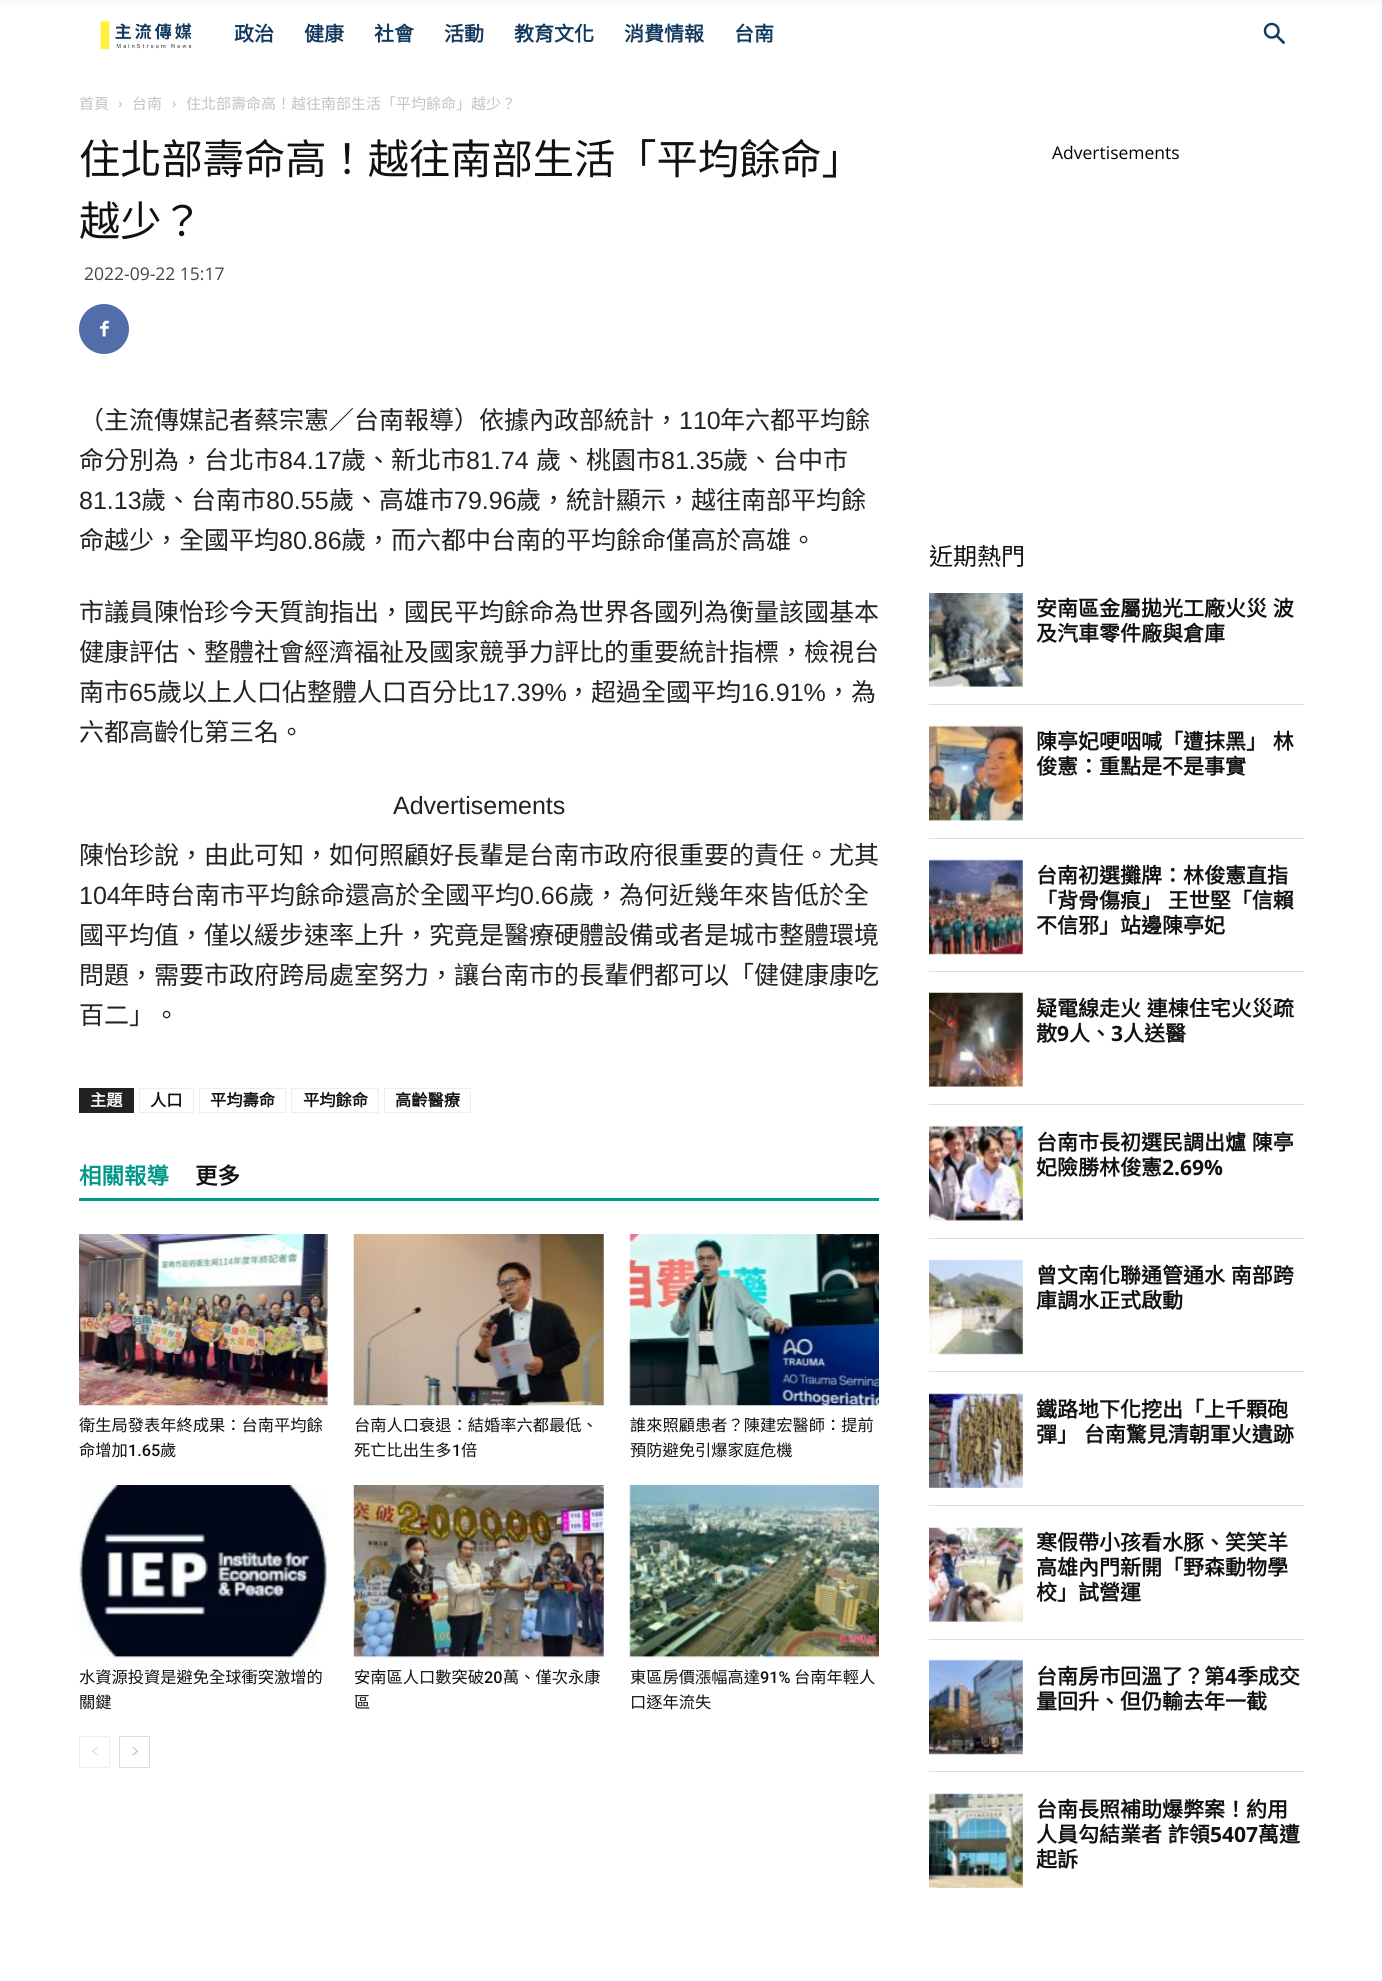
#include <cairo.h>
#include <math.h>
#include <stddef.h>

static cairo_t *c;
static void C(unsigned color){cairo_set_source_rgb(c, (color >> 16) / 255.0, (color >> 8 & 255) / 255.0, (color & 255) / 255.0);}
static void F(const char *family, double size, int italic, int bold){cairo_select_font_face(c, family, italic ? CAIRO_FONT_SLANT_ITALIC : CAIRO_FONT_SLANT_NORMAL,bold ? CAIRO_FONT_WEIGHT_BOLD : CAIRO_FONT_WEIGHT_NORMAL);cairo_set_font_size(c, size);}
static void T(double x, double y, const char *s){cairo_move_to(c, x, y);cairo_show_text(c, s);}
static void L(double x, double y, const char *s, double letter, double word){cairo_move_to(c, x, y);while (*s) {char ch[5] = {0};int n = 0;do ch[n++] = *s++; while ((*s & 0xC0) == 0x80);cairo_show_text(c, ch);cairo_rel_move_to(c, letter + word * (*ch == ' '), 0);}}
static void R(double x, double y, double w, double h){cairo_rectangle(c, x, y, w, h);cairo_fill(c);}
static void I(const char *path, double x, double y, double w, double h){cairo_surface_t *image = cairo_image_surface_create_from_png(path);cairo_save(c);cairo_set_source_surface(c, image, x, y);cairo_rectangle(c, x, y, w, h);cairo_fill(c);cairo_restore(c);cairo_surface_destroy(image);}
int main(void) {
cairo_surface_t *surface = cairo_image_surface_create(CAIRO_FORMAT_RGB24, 1382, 1981);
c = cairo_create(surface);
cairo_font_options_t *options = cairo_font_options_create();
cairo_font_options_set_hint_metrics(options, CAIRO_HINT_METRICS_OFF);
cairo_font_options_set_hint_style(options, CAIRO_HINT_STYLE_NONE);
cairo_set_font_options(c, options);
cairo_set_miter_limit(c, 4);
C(0xffffff);
cairo_paint(c);
C(0xf9f9f9);
R(0,0,1382,5);
I("1.png",100,21,92,29);
F("Noto Sans CJK TC",20,0,1);
C(0x123a5e);
T(234,41,"政治");
T(304,41,"健康");
T(374,41,"社會");
T(444,41,"活動");
T(514,41,"教育文化");
T(624,41,"消費情報");
T(734,41,"台南");
I("2.png",1263,22,22,22);
F("Noto Sans CJK TC",15,0,0);
C(0xc3c3c3);
T(79,109,"首頁");
I("3.png",118,101,4,7);
T(132,109,"台南");
I("4.png",172,101,4,7);
T(186,109,"住北部壽命高！越往南部生活「平均餘命」越少？");
F("Noto Sans CJK TC",41.25,0,0);
C(0x111111);
T(79,174,"住北部壽命高！越往南部生活「平均餘命」");
T(79,236,"越少？");
F("Open Sans",17.5,0,0);
C(0x444444);
T(84,280,"2022-09-22 15:17");
C(0x516eab);
cairo_new_path(c);
cairo_arc(c,104,329,25,0,2 * M_PI);
cairo_fill(c);
I("5.png",100,320,9,17);
F("Noto Sans CJK TC",25,0,0);
C(0x222222);
T(79,429,"（主流傳媒記者蔡宗憲／台南報導）依據內政部統計，");
F("Liberation Sans",25,0,0);
T(679,429,"110");
F("Noto Sans CJK TC",25,0,0);
T(720,429,"年六都平均餘");
T(79,469,"命分別為，台北市");
F("Liberation Sans",25,0,0);
T(279,469,"84.17");
F("Noto Sans CJK TC",25,0,0);
T(341,469,"歲、新北市");
F("Liberation Sans",25,0,0);
T(466,469,"81.74");
F("Noto Sans CJK TC",25,0,0);
T(536,469,"歲、桃園市");
F("Liberation Sans",25,0,0);
T(661,469,"81.35");
F("Noto Sans CJK TC",25,0,0);
T(723,469,"歲、台中市");
F("Liberation Sans",25,0,0);
T(79,509,"81.13");
F("Noto Sans CJK TC",25,0,0);
T(141,509,"歲、台南市");
F("Liberation Sans",25,0,0);
T(266,509,"80.55");
F("Noto Sans CJK TC",25,0,0);
T(329,509,"歲、高雄市");
F("Liberation Sans",25,0,0);
T(454,509,"79.96");
F("Noto Sans CJK TC",25,0,0);
T(516,509,"歲，統計顯示，越往南部平均餘");
T(79,549,"命越少，全國平均");
F("Liberation Sans",25,0,0);
T(279,549,"80.86");
F("Noto Sans CJK TC",25,0,0);
T(341,549,"歲，而六都中台南的平均餘命僅高於高雄。");
T(79,621,"市議員陳怡珍今天質詢指出，國民平均餘命為世界各國列為衡量該國基本");
T(79,661,"健康評估、整體社會經濟福祉及國家競爭力評比的重要統計指標，檢視台");
T(79,701,"南市");
F("Liberation Sans",25,0,0);
T(129,701,"65");
F("Noto Sans CJK TC",25,0,0);
T(157,701,"歲以上人口佔整體人口百分比");
F("Liberation Sans",25,0,0);
T(482,701,"17.39%");
F("Noto Sans CJK TC",25,0,0);
T(566,701,"，超過全國平均");
F("Liberation Sans",25,0,0);
T(741,701,"16.91%");
F("Noto Sans CJK TC",25,0,0);
T(826,701,"，為");
T(79,741,"六都高齡化第三名。");
F("Liberation Sans",25,0,0);
T(393,814,"Advertisements");
F("Noto Sans CJK TC",25,0,0);
T(79,864,"陳怡珍說，由此可知，如何照顧好長輩是台南市政府很重要的責任。尤其");
F("Liberation Sans",25,0,0);
T(79,904,"104");
F("Noto Sans CJK TC",25,0,0);
T(120,904,"年時台南市平均餘命還高於全國平均");
F("Liberation Sans",25,0,0);
T(520,904,"0.66");
F("Noto Sans CJK TC",25,0,0);
T(569,904,"歲，為何近幾年來皆低於全");
T(79,944,"國平均值，僅以緩步速率上升，究竟是醫療硬體設備或者是城市整體環境");
T(79,984,"問題，需要市政府跨局處室努力，讓台南市的長輩們都可以「健健康康吃");
T(79,1024,"百二」。");
R(79,1088,55,25);
F("Noto Sans CJK TC",16.25,0,1);
C(0xffffff);
T(90,1106,"主題");
cairo_rectangle(c,139.5,1088.5,54,24);
C(0xededed);
cairo_set_line_width(c,1);
cairo_stroke(c);
C(0x111111);
T(150,1106,"人口");
cairo_rectangle(c,199.5,1088.5,86,24);
C(0xededed);
cairo_stroke(c);
C(0x111111);
T(210,1106,"平均壽命");
cairo_rectangle(c,291.5,1088.5,87,24);
C(0xededed);
cairo_stroke(c);
C(0x111111);
T(303,1106,"平均餘命");
cairo_rectangle(c,384.5,1088.5,86,24);
C(0xededed);
cairo_stroke(c);
C(0x111111);
T(395,1106,"高齡醫療");
C(0x009688);
R(79,1198,800,3);
F("Noto Sans CJK TC",22.5,0,1);
T(79,1184,"相關報導");
C(0x111111);
T(195,1184,"更多");
I("6.png",79,1234,249,172);
F("Noto Sans CJK TC",16.25,0,0);
T(79,1431,"衛生局發表年終成果：台南平均餘");
T(79,1456,"命增加");
F("Roboto Medium",16.25,0,0);
T(128,1456,"1.65");
F("Noto Sans CJK TC",16.25,0,0);
T(160,1456,"歲");
I("7.png",353,1234,251,172);
T(354,1431,"台南人口衰退：結婚率六都最低、");
T(354,1456,"死亡比出生多");
F("Roboto Medium",16.25,0,0);
T(452,1456,"1");
F("Noto Sans CJK TC",16.25,0,0);
T(461,1456,"倍");
I("8.png",629,1234,250,172);
T(630,1431,"誰來照顧患者？陳建宏醫師：提前");
T(630,1456,"預防避免引爆家庭危機");
I("9.png",79,1485,249,173);
T(79,1683,"水資源投資是避免全球衝突激增的");
T(79,1708,"關鍵");
I("10.png",353,1485,251,173);
T(354,1683,"安南區人口數突破");
F("Roboto Medium",16.25,0,0);
T(484,1683,"20");
F("Noto Sans CJK TC",16.25,0,0);
T(503,1683,"萬、僅次永康");
T(354,1708,"區");
I("11.png",629,1485,250,173);
T(630,1683,"東區房價漲幅高達");
F("Roboto Medium",16.25,0,0);
T(760,1683,"91%");
F("Noto Sans CJK TC",16.25,0,0);
T(794,1683,"台南年輕人");
T(630,1708,"口逐年流失");
cairo_rectangle(c,79.5,1736.5,30,31);
C(0xeeeeee);
cairo_stroke(c);
I("12.png",92,1747,6,9);
cairo_rectangle(c,119.5,1736.5,30,31);
C(0xdcdcdc);
cairo_stroke(c);
I("13.png",132,1747,6,9);
F("Open Sans",17.5,0,0);
C(0x000000);
T(1052,159,"Advertisements");
F("Noto Sans CJK TC",24,0,0);
C(0x111111);
T(929,565,"近期熱門");
C(0xdddddd);
R(929,704,375,1);
I("14.png",929,593,94,94);
F("Noto Sans CJK TC",21,0,1);
C(0x111111);
L(1036,616,"安南區金屬拋光工廠火災 波",0,1);
T(1036,641,"及汽車零件廠與倉庫");
C(0xdddddd);
R(929,838,375,1);
C(0xf0f0f0);
R(929,726,94,94);
I("15.png",929,725,94,96);
C(0x111111);
L(1036,749,"陳亭妃哽咽喊「遭抹黑」 林",0,1);
T(1036,774,"俊憲：重點是不是事實");
C(0xdddddd);
R(929,971,375,1);
C(0xf0f0f0);
R(929,860,94,94);
I("16.png",929,859,94,96);
C(0x111111);
T(1036,883,"台南初選攤牌：林俊憲直指");
L(1036,908,"「背骨傷痕」 王世堅「信賴",0,1);
T(1036,933,"不信邪」站邊陳亭妃");
C(0xdddddd);
R(929,1104,375,1);
I("17.png",929,992,94,95);
C(0x111111);
L(1036,1016,"疑電線走火 連棟住宅火災疏",0,1);
T(1036,1041,"散");
F("Open Sans",21,0,1);
T(1057,1041,"9");
F("Noto Sans CJK TC",21,0,1);
T(1069,1041,"人、");
F("Open Sans",21,0,1);
T(1111,1041,"3");
F("Noto Sans CJK TC",21,0,1);
T(1123,1041,"人送醫");
C(0xdddddd);
R(929,1238,375,1);
C(0xf0f0f0);
R(929,1126,94,94);
I("18.png",929,1125,94,96);
C(0x111111);
L(1036,1150,"台南市長初選民調出爐 陳亭",0,1);
T(1036,1175,"妃險勝林俊憲");
F("Open Sans",21,0,1);
T(1162,1175,"2.69%");
C(0xdddddd);
R(929,1371,375,1);
C(0xf0f0f0);
R(929,1260,94,94);
I("19.png",929,1259,94,96);
F("Noto Sans CJK TC",21,0,1);
C(0x111111);
L(1036,1283,"曾文南化聯通管通水 南部跨",0,1);
T(1036,1308,"庫調水正式啟動");
C(0xdddddd);
R(929,1505,375,1);
C(0xf0f0f0);
R(929,1394,94,94);
I("20.png",929,1393,94,95);
C(0x111111);
T(1036,1417,"鐵路地下化挖出「上千顆砲");
L(1036,1442,"彈」 台南驚見清朝軍火遺跡",0,1);
C(0xdddddd);
R(929,1639,375,1);
I("21.png",929,1527,94,95);
C(0x111111);
T(1036,1550,"寒假帶小孩看水豚、笑笑羊");
T(1036,1575,"高雄內門新開「野森動物學");
T(1036,1600,"校」試營運");
C(0xdddddd);
R(929,1771,375,1);
C(0xf0f0f0);
R(929,1660,94,94);
I("22.png",929,1659,94,96);
C(0x111111);
T(1036,1684,"台南房市回溫了？第");
F("Open Sans",21,0,1);
T(1225,1684,"4");
F("Noto Sans CJK TC",21,0,1);
T(1237,1684,"季成交");
T(1036,1709,"量回升、但仍輸去年一截");
C(0xf0f0f0);
R(929,1794,94,94);
I("23.png",929,1793,94,95);
C(0x111111);
T(1036,1817,"台南長照補助爆弊案！約用");
L(1036,1842,"人員勾結業者 詐領",0,1);
F("Open Sans",21,0,1);
T(1210,1842,"5407");
F("Noto Sans CJK TC",21,0,1);
T(1258,1842,"萬遭");
T(1036,1867,"起訴");
cairo_surface_write_to_png(surface, "o.png");
cairo_font_options_destroy(options);
cairo_destroy(c);
cairo_surface_destroy(surface);
return 0;
}
